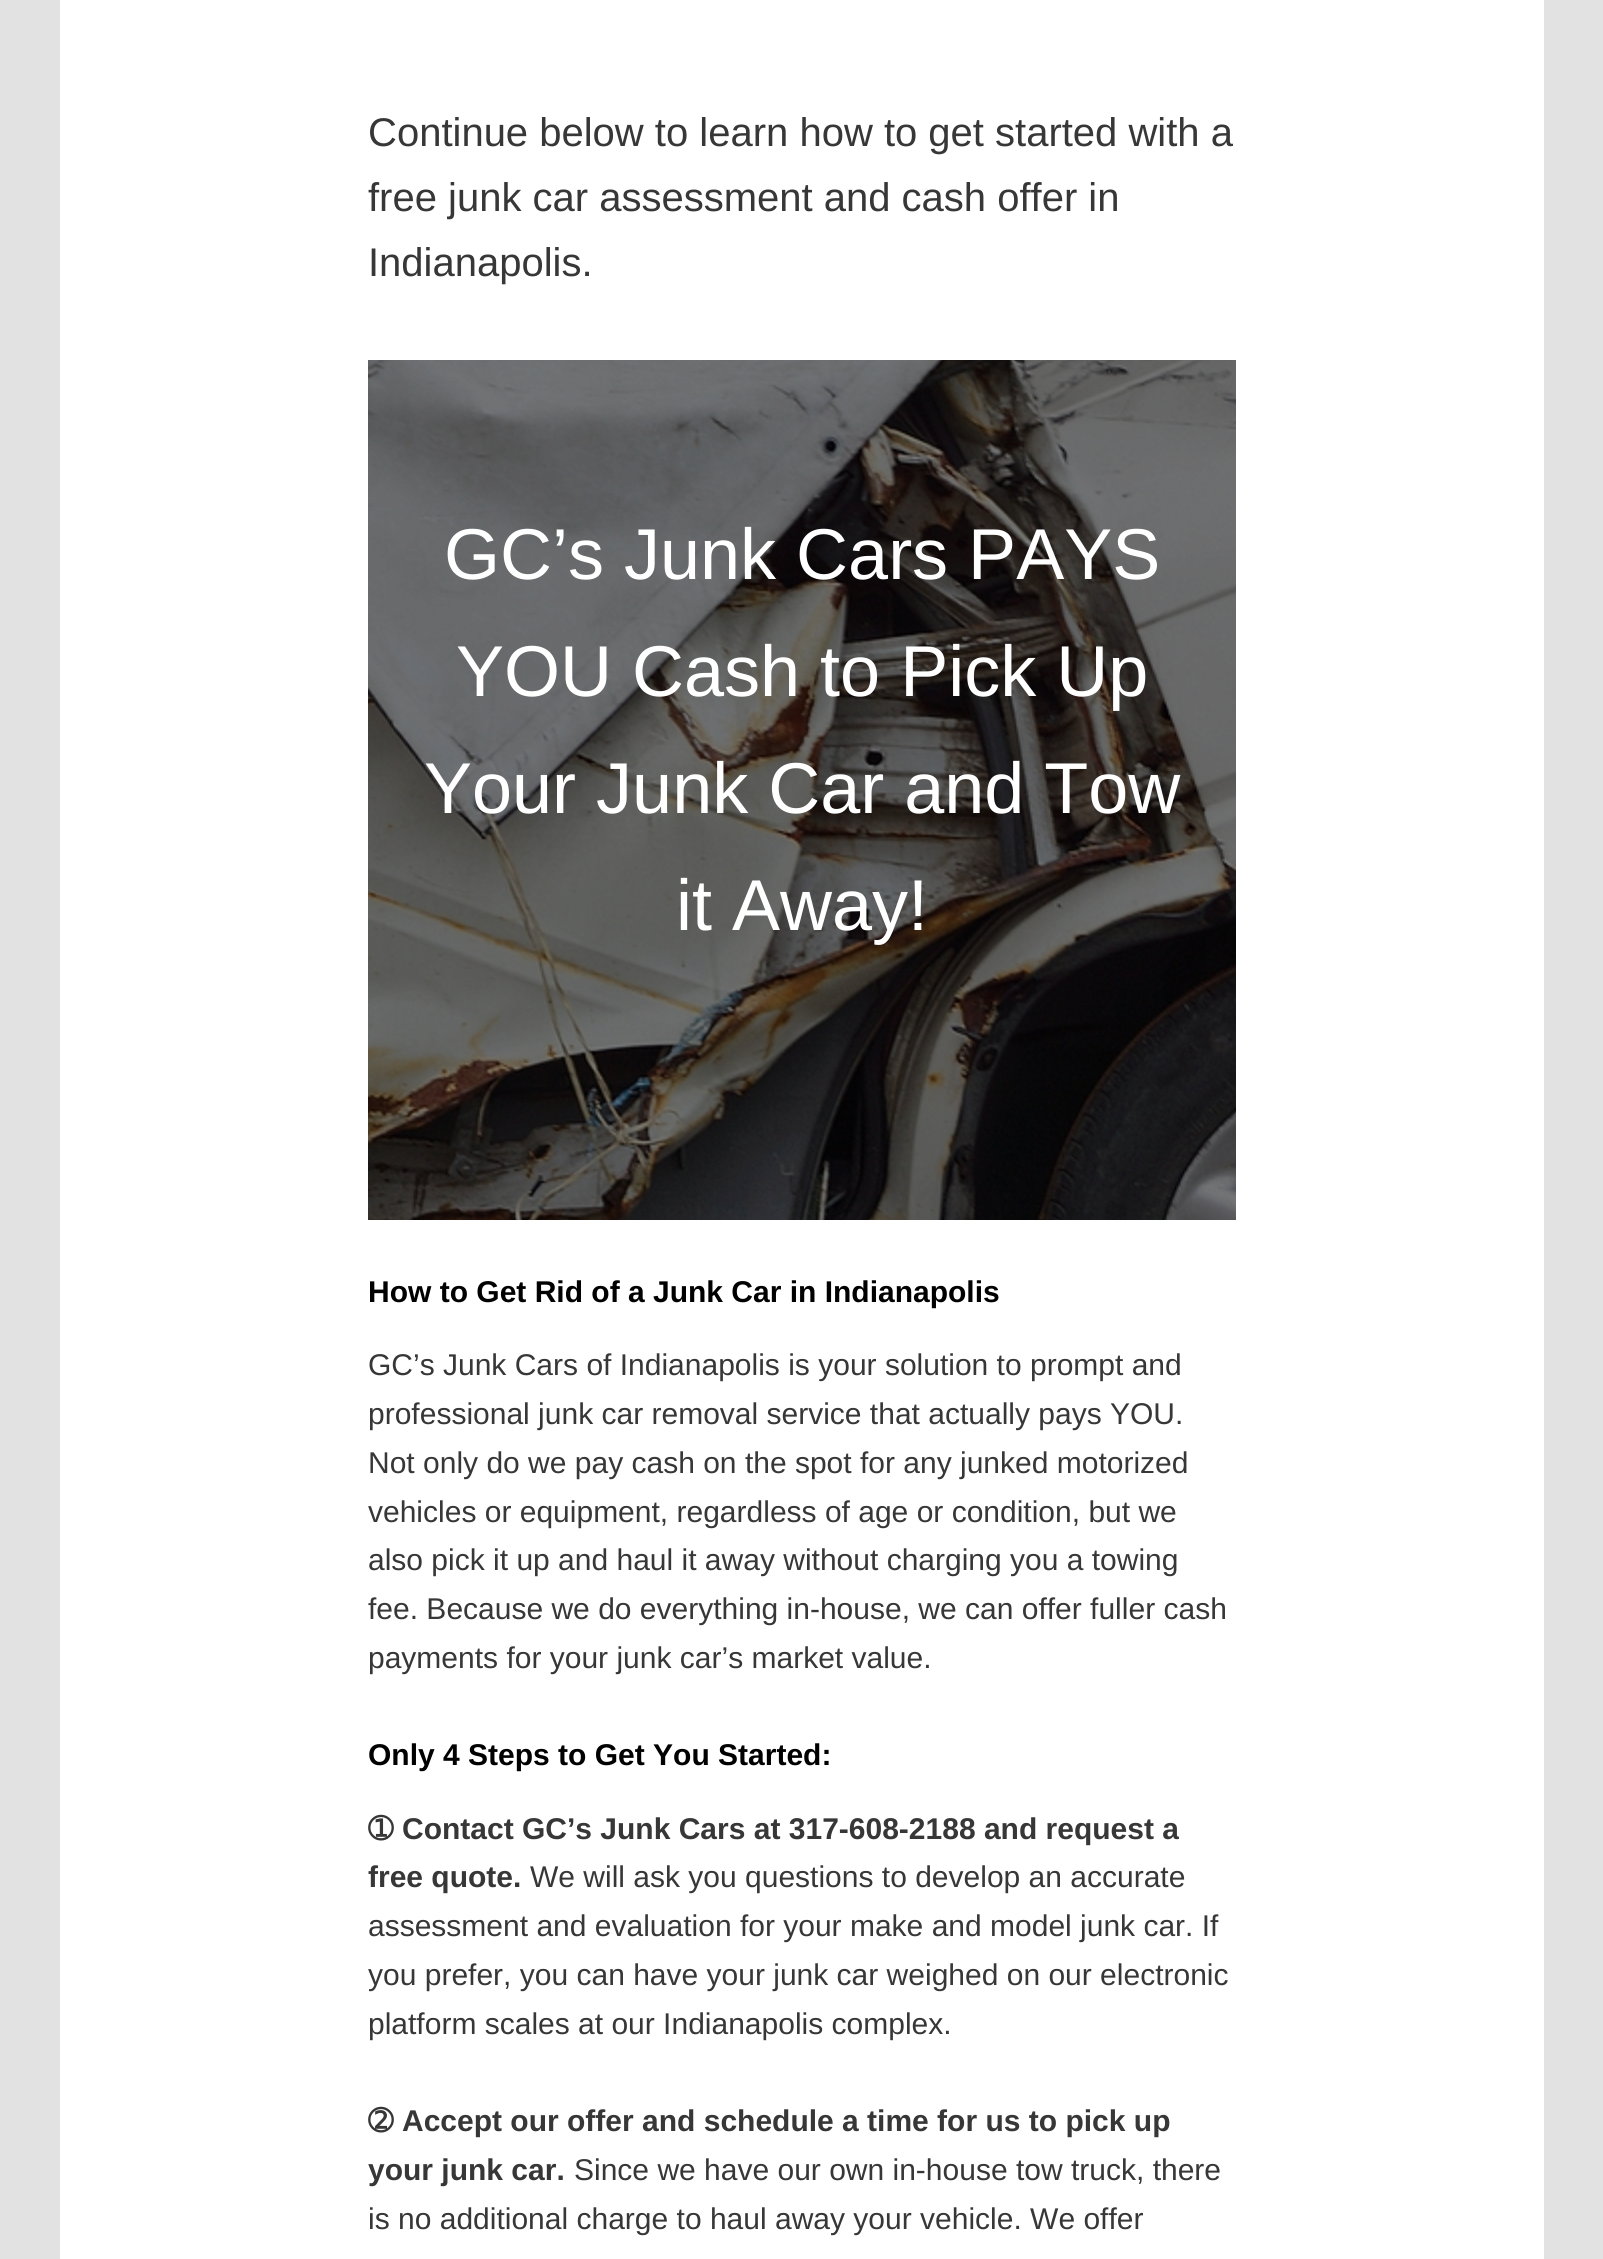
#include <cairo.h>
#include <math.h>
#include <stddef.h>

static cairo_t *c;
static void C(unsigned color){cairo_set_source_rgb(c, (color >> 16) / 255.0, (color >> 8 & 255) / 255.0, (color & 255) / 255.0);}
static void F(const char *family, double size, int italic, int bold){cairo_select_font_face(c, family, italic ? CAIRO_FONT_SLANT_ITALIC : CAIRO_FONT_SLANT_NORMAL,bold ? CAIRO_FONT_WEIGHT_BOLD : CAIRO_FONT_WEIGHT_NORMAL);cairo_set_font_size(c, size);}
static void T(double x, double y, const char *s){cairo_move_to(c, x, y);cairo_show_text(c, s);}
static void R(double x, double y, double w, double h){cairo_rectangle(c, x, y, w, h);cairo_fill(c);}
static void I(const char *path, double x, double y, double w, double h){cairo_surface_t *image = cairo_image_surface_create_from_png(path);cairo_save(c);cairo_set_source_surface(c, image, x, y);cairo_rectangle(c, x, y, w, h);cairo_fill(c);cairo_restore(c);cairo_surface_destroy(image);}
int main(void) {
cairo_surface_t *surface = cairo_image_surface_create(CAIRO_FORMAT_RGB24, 1603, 2259);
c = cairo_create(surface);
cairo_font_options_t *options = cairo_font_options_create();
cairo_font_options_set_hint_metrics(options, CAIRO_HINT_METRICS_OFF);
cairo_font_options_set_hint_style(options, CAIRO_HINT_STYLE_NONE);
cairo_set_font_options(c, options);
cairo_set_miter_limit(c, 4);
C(0xe2e2e2);
cairo_paint(c);
C(0xffffff);
R(60,0,1484,2259);
F("Liberation Sans",40,0,0);
C(0x373737);
T(368,146,"Continue below to learn how to get started with a");
T(368,211,"free junk car assessment and cash offer in");
T(368,276,"Indianapolis.");
I("1.png",368,360,868,860);
F("Liberation Sans",72,0,0);
C(0xffffff);
T(444,579,"GC’s Junk Cars PAYS");
T(456,696,"YOU Cash to Pick Up");
T(424,813,"Your Junk Car and Tow");
T(676,930,"it Away!");
F("Liberation Sans",30,0,1);
C(0x000000);
T(368,1302,"How to Get Rid of a Junk Car in Indianapolis");
F("Liberation Sans",30,0,0);
C(0x373737);
T(368,1375,"GC’s Junk Cars of Indianapolis is your solution to prompt and");
T(368,1424,"professional junk car removal service that actually pays YOU.");
T(368,1473,"Not only do we pay cash on the spot for any junked motorized");
T(368,1522,"vehicles or equipment, regardless of age or condition, but we");
T(368,1570,"also pick it up and haul it away without charging you a towing");
T(368,1619,"fee. Because we do everything in-house, we can offer fuller cash");
T(368,1668,"payments for your junk car’s market value.");
F("Liberation Sans",30,0,1);
C(0x000000);
T(368,1765,"Only 4 Steps to Get You Started:");
F("DejaVu Sans",30,0,1);
C(0x373737);
T(368,1839,"➀");
F("Liberation Sans",30,0,1);
T(402,1839,"Contact GC’s Junk Cars at 317-608-2188 and request a");
T(368,1887,"free quote.");
F("Liberation Sans",30,0,0);
T(530,1887,"We will ask you questions to develop an accurate");
T(368,1936,"assessment and evaluation for your make and model junk car. If");
T(368,1985,"you prefer, you can have your junk car weighed on our electronic");
T(368,2034,"platform scales at our Indianapolis complex.");
F("DejaVu Sans",30,0,1);
T(368,2131,"➁");
F("Liberation Sans",30,0,1);
T(402,2131,"Accept our offer and schedule a time for us to pick up");
T(368,2180,"your junk car.");
F("Liberation Sans",30,0,0);
T(574,2180,"Since we have our own in-house tow truck, there");
T(368,2229,"is no additional charge to haul away your vehicle. We offer");
cairo_surface_write_to_png(surface, "o.png");
cairo_font_options_destroy(options);
cairo_destroy(c);
cairo_surface_destroy(surface);
return 0;
}
